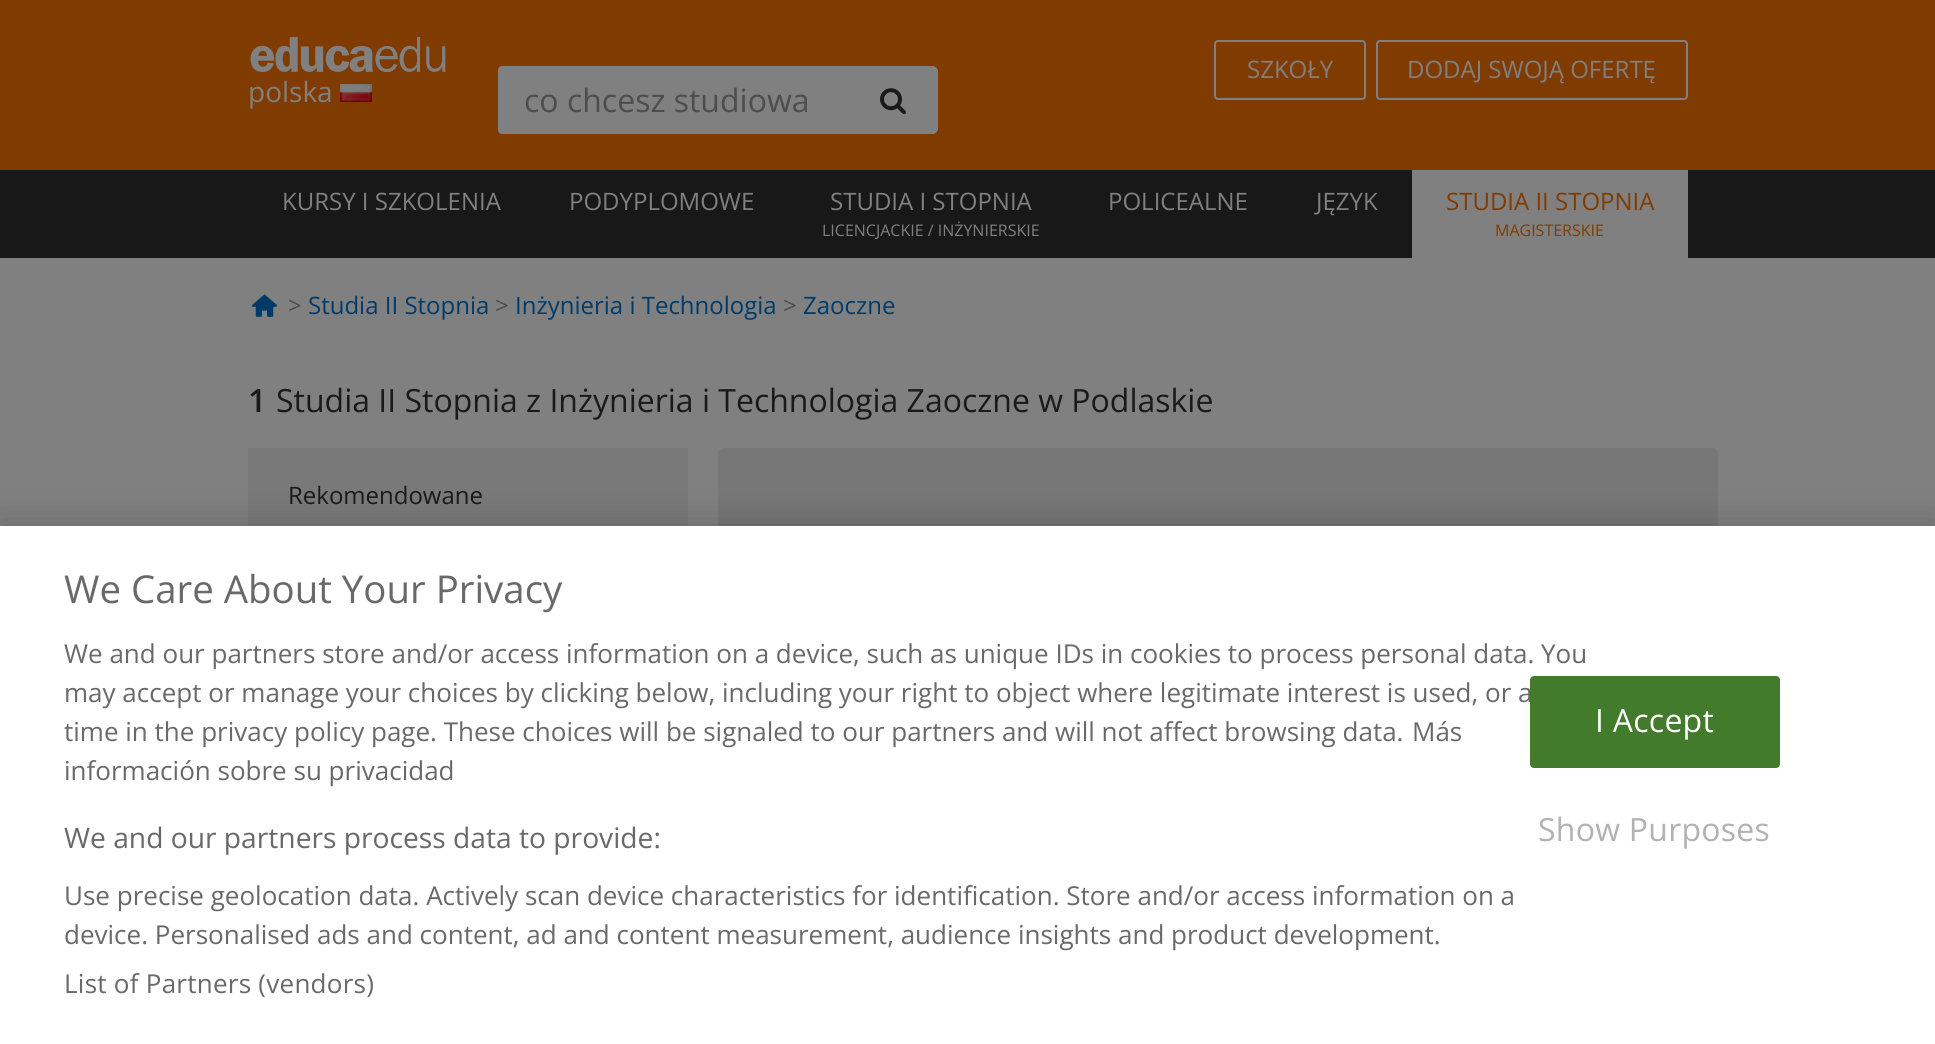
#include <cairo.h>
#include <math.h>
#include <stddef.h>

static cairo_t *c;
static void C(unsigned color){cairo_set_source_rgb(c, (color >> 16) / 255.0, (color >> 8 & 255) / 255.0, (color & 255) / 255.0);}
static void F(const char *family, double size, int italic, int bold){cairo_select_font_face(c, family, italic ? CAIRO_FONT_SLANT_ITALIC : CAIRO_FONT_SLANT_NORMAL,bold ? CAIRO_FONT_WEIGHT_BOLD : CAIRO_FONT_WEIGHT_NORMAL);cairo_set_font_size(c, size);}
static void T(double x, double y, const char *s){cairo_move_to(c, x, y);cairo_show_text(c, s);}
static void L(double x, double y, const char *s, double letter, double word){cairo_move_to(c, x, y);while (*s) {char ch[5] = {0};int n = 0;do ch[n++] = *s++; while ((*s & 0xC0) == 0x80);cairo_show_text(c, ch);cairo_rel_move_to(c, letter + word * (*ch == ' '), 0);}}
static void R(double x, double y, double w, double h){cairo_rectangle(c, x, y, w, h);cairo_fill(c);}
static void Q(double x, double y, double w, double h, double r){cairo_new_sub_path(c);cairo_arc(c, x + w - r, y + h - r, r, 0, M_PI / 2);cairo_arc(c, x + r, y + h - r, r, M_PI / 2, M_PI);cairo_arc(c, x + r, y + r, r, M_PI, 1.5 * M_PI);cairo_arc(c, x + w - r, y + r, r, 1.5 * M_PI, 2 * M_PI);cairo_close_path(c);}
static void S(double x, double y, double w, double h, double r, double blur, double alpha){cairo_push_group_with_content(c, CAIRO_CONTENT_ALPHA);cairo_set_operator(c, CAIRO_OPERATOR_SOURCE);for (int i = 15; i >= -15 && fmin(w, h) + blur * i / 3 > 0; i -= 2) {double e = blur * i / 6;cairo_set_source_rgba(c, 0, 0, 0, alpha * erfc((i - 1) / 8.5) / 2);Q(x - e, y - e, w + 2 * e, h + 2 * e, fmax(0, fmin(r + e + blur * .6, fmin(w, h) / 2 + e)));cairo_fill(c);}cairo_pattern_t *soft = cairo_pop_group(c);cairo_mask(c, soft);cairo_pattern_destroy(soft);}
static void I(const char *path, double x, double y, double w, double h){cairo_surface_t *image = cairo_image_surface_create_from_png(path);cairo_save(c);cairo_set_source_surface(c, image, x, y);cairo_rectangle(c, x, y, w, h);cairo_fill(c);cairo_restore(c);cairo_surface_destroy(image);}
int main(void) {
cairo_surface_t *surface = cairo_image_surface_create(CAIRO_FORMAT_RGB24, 1935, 1044);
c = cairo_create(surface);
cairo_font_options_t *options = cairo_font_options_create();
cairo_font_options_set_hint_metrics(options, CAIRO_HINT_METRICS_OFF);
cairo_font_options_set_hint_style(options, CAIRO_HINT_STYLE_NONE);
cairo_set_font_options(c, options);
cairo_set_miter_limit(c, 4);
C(0x808080);
cairo_paint(c);
C(0x803b00);
R(0,0,1935,170);
Q(1215,41,150,58,3);
C(0x808080);
cairo_stroke(c);
F("Open Sans",24,0,0);
T(1247,78,"SZKOŁY");
Q(1377,41,310,58,3);
cairo_stroke(c);
T(1407,78,"DODAJ SWOJĄ OFERTĘ");
I("1.png",250,37,196,35);
F("Open Sans",28,0,0);
T(248,102,"polska");
I("2.png",340,84,32,18);
cairo_new_path(c);
cairo_move_to(c,502,67);
cairo_line_to(c,847,67);
cairo_line_to(c,847,133);
cairo_line_to(c,502,133);
cairo_curve_to(c,500.5,133,499,131.5,499,130);
cairo_line_to(c,499,70);
cairo_curve_to(c,499,68.5,500.5,67,502,67);
cairo_close_path(c);
cairo_fill_preserve(c);
cairo_stroke(c);
F("Open Sans",32,0,0);
C(0x4d4d4d);
T(524,112,"co chcesz studiowa");
C(0x808080);
cairo_new_path(c);
cairo_move_to(c,846,66);
cairo_line_to(c,932,66);
cairo_curve_to(c,935.5,66,938,68.5,938,72);
cairo_line_to(c,938,128);
cairo_curve_to(c,938,131.5,935.5,134,932,134);
cairo_line_to(c,846,134);
cairo_close_path(c);
cairo_fill(c);
cairo_new_path(c);
cairo_move_to(c,846,66);
cairo_line_to(c,848,68);
cairo_line_to(c,932,68);
cairo_line_to(c,935,69);
cairo_line_to(c,936,68);
cairo_curve_to(c,935,67,934,66,932,66);
cairo_close_path(c);
cairo_fill(c);
cairo_new_path(c);
cairo_move_to(c,938,128);
cairo_line_to(c,938,72);
cairo_curve_to(c,938,70,937,69,936,68);
cairo_line_to(c,935,69);
cairo_line_to(c,936,72);
cairo_line_to(c,936,128);
cairo_line_to(c,935,131);
cairo_line_to(c,936,132);
cairo_curve_to(c,937,131,938,130,938,128);
cairo_close_path(c);
cairo_fill(c);
cairo_new_path(c);
cairo_move_to(c,932,134);
cairo_curve_to(c,934,134,935,133,936,132);
cairo_line_to(c,935,131);
cairo_line_to(c,932,132);
cairo_line_to(c,848,132);
cairo_line_to(c,846,134);
cairo_close_path(c);
cairo_fill(c);
I("3.png",880,88,26,27);
C(0x181818);
R(0,170,1935,88);
F("Open Sans",24,0,0);
C(0x808080);
T(282,210,"KURSY I SZKOLENIA");
T(569,210,"PODYPLOMOWE");
T(830,210,"STUDIA I STOPNIA");
F("Open Sans",16,0,0);
T(822,236,"LICENCJACKIE / INŻYNIERSKIE");
F("Open Sans",24,0,0);
T(1108,210,"POLICEALNE");
T(1316,210,"JĘZYK");
R(1412,170,276,88);
C(0x803b00);
T(1446,210,"STUDIA II STOPNIA");
F("Open Sans",16,0,0);
T(1495,236,"MAGISTERSKIE");
I("4.png",252,294,25,23);
F("Open Sans",24,0,0);
C(0x4d4d4d);
T(288,314,">");
C(0x003b69);
T(308,314,"Studia II Stopnia");
C(0x4d4d4d);
T(495,314,">");
C(0x003b69);
T(515,314,"Inżynieria i Technologia");
C(0x4d4d4d);
T(783,314,">");
C(0x003b69);
T(803,314,"Zaoczne");
F("Open Sans SemiBold",32,0,0);
C(0x1a1a1a);
T(248,412,"1");
F("Open Sans",32,0,0);
T(276,412,"Studia II Stopnia z Inżynieria i Technologia Zaoczne w Podlaskie");
C(0x797979);
R(248,448,440,78);
F("Open Sans",24,0,0);
C(0x1a1a1a);
T(288,504,"Rekomendowane");
C(0x777777);
Q(718,448,1000,190,6);
cairo_fill(c);
C(0x000000);
S(0,526,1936,518,0,18,.2);
C(0xffffff);
R(0,526,1935,518);
F("Open Sans",38.4,0,0);
C(0x696969);
T(64,603,"We Care About Your Privacy");
F("Open Sans",26.02,0,0);
T(64,663,"We and our partners store and/or access information on a device, such as unique IDs in cookies to process personal data. You");
T(64,702,"may accept or manage your choices by clicking below, including your right to object where legitimate interest is used, or a");
T(64,741,"time in the privacy policy page. These choices will be signaled to our partners and will not affect browsing data.");
T(1412,741,"Más");
T(64,780,"información sobre su privacidad");
F("Open Sans",28.2,0,0);
T(64,848,"We and our partners process data to provide:");
F("Open Sans",26.02,0,0);
T(64,905,"Use precise geolocation data. Actively scan device characteristics for identification. Store and/or access information on a");
T(64,944,"device. Personalised ads and content, ad and content measurement, audience insights and product development.");
L(64,993,"List of Partners (vendors)",.25,0);
C(0x437b2d);
Q(1531,677,248,90,3);
cairo_fill_preserve(c);
cairo_stroke(c);
F("Open Sans",32,0,0);
C(0xffffff);
L(1595,732,"I Accept",.25,0);
C(0xb3b1b1);
L(1538,841,"Show Purposes",.25,0);
cairo_surface_write_to_png(surface, "o.png");
cairo_font_options_destroy(options);
cairo_destroy(c);
cairo_surface_destroy(surface);
return 0;
}
